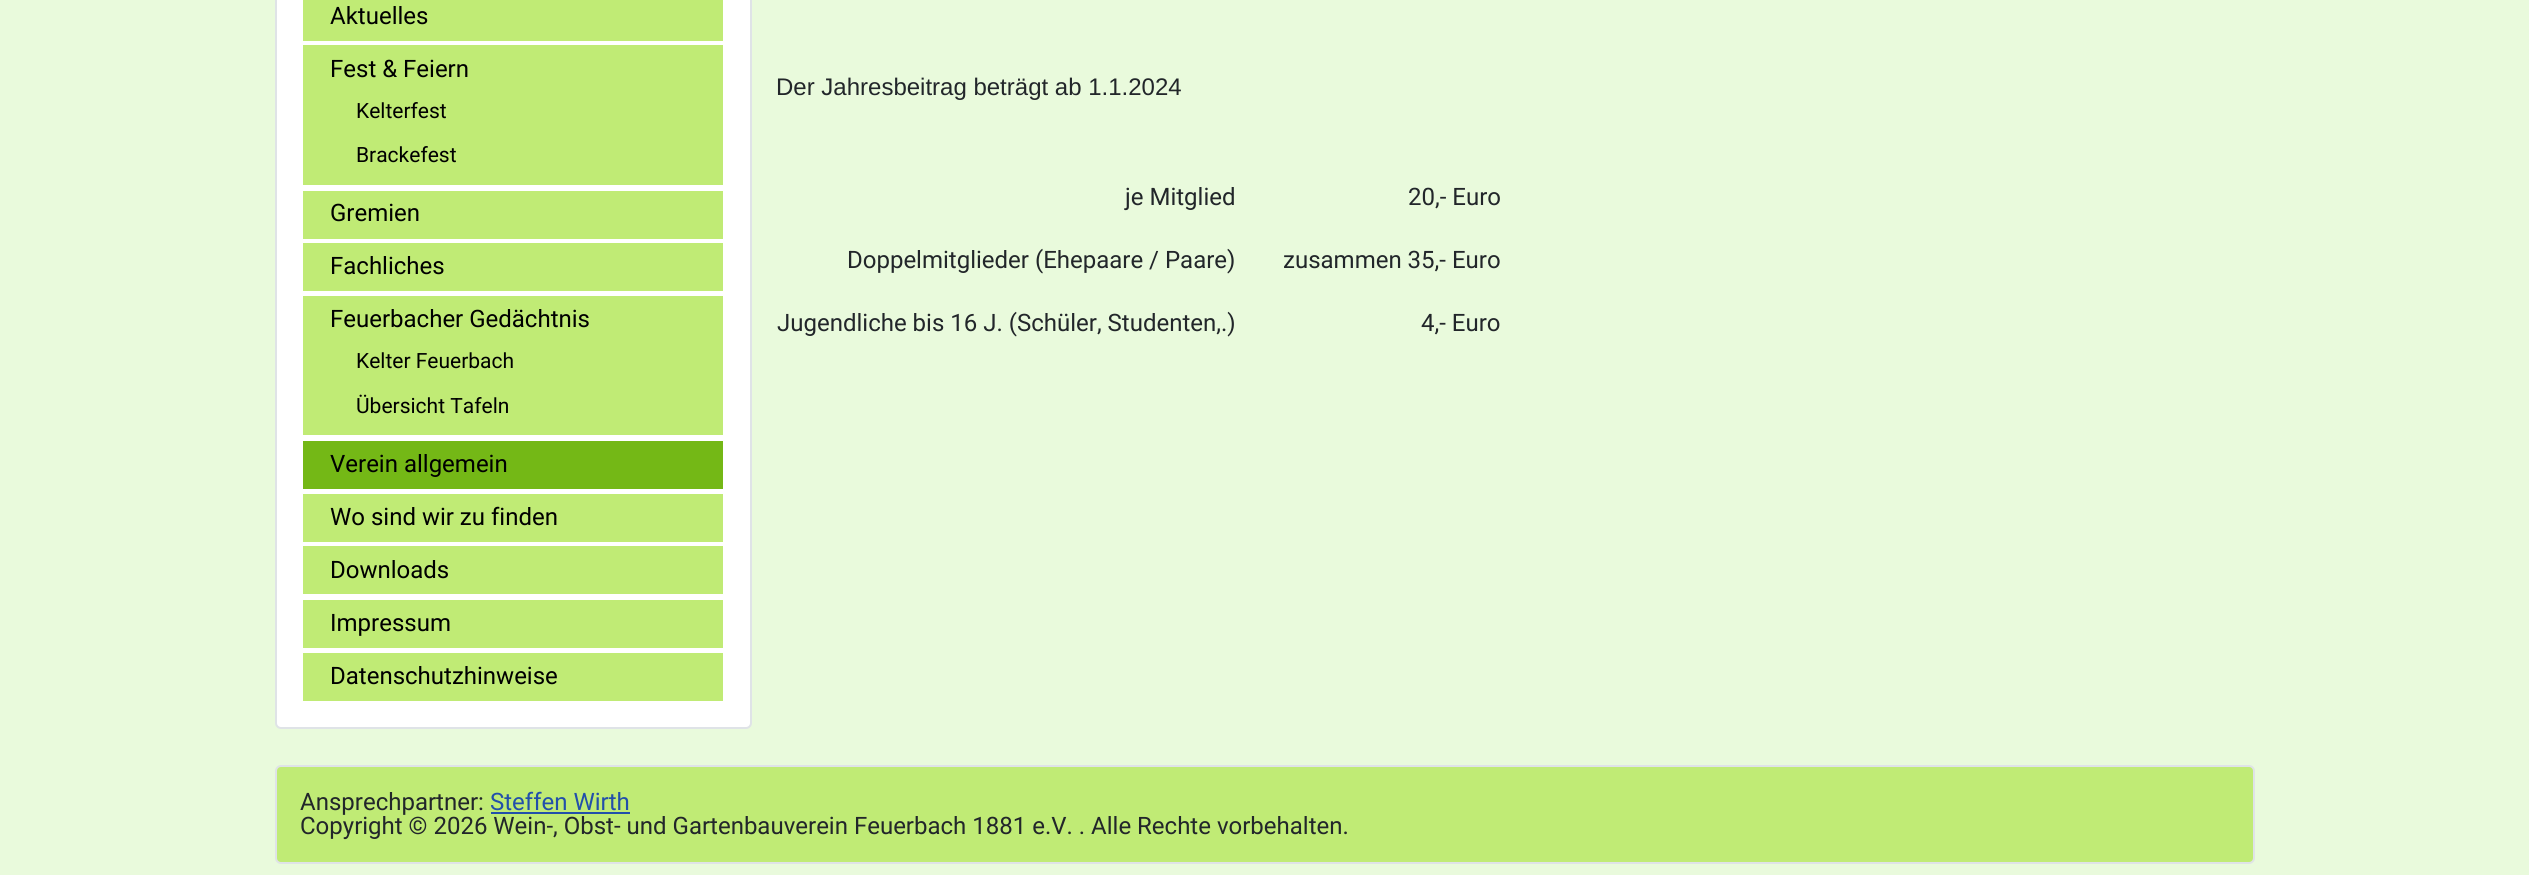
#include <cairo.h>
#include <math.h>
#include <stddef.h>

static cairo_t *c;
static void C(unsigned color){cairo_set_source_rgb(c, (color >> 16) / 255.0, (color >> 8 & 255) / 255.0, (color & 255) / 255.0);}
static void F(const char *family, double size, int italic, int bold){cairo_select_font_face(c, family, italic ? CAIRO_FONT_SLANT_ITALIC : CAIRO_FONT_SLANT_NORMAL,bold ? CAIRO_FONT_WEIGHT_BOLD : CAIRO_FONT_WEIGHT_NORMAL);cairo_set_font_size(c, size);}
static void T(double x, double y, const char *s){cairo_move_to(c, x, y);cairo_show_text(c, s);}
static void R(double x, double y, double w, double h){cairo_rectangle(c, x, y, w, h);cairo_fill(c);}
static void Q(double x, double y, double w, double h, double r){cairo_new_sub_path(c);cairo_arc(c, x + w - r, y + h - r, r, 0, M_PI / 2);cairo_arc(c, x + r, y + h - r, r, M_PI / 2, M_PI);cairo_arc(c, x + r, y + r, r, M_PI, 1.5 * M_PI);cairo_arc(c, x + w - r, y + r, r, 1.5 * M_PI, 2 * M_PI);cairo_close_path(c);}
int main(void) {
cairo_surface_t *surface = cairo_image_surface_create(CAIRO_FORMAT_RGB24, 2529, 875);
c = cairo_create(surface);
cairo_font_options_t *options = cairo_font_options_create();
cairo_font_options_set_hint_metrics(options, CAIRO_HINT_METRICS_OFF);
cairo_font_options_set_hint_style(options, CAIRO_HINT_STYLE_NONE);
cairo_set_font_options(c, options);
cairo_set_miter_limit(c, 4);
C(0xe9fadc);
cairo_paint(c);
C(0xffffff);
Q(276,-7,475,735,5);
cairo_fill_preserve(c);
C(0xdfe3e7);
cairo_stroke(c);
C(0xc0eb75);
R(303,0,420,41);
F("Roboto",24,0,0);
C(0x000000);
T(330,24,"Aktuelles");
C(0xc0eb75);
R(303,45,420,140);
C(0x000000);
T(330,77,"Fest & Feiern");
F("Roboto",21,0,0);
T(356,118,"Kelterfest");
T(356,162,"Brackefest");
C(0xc0eb75);
R(303,191,420,48);
F("Roboto",24,0,0);
C(0x000000);
T(330,221,"Gremien");
C(0xc0eb75);
R(303,243,420,48);
C(0x000000);
T(330,274,"Fachliches");
C(0xc0eb75);
R(303,296,420,139);
C(0x000000);
T(330,327,"Feuerbacher Gedächtnis");
F("Roboto",21,0,0);
T(356,368,"Kelter Feuerbach");
T(356,413,"Übersicht Tafeln");
C(0x74b816);
R(303,441,420,48);
F("Roboto",24,0,0);
C(0x000000);
T(330,472,"Verein allgemein");
C(0xc0eb75);
R(303,494,420,48);
C(0x000000);
T(330,525,"Wo sind wir zu finden");
C(0xc0eb75);
R(303,546,420,48);
C(0x000000);
T(330,578,"Downloads");
C(0xc0eb75);
R(303,600,420,48);
C(0x000000);
T(330,631,"Impressum");
C(0xc0eb75);
R(303,653,420,48);
C(0x000000);
T(330,684,"Datenschutzhinweise");
F("Liberation Sans",24,0,0);
C(0x22262a);
T(776,95,"Der Jahresbeitrag beträgt ab 1.1.2024");
F("Roboto",24,0,0);
T(1125,205,"je Mitglied");
T(1408,205,"20,- Euro");
T(847,268,"Doppelmitglieder (Ehepaare / Paare)");
T(1283,268,"zusammen 35,- Euro");
T(777,331,"Jugendliche bis 16 J. (Schüler, Studenten,.)");
T(1421,331,"4,- Euro");
C(0xc0eb75);
Q(276,766,1978,97,5);
cairo_fill_preserve(c);
C(0xdfe3e7);
cairo_stroke(c);
C(0x22262a);
T(300,810,"Ansprechpartner:");
C(0x224faa);
T(490,810,"Steffen Wirth");
R(491,812,139,2);
C(0x22262a);
T(300,834,"Copyright © 2026 Wein-, Obst- und Gartenbauverein Feuerbach 1881 e.V. . Alle Rechte vorbehalten.");
cairo_surface_write_to_png(surface, "o.png");
cairo_font_options_destroy(options);
cairo_destroy(c);
cairo_surface_destroy(surface);
return 0;
}
